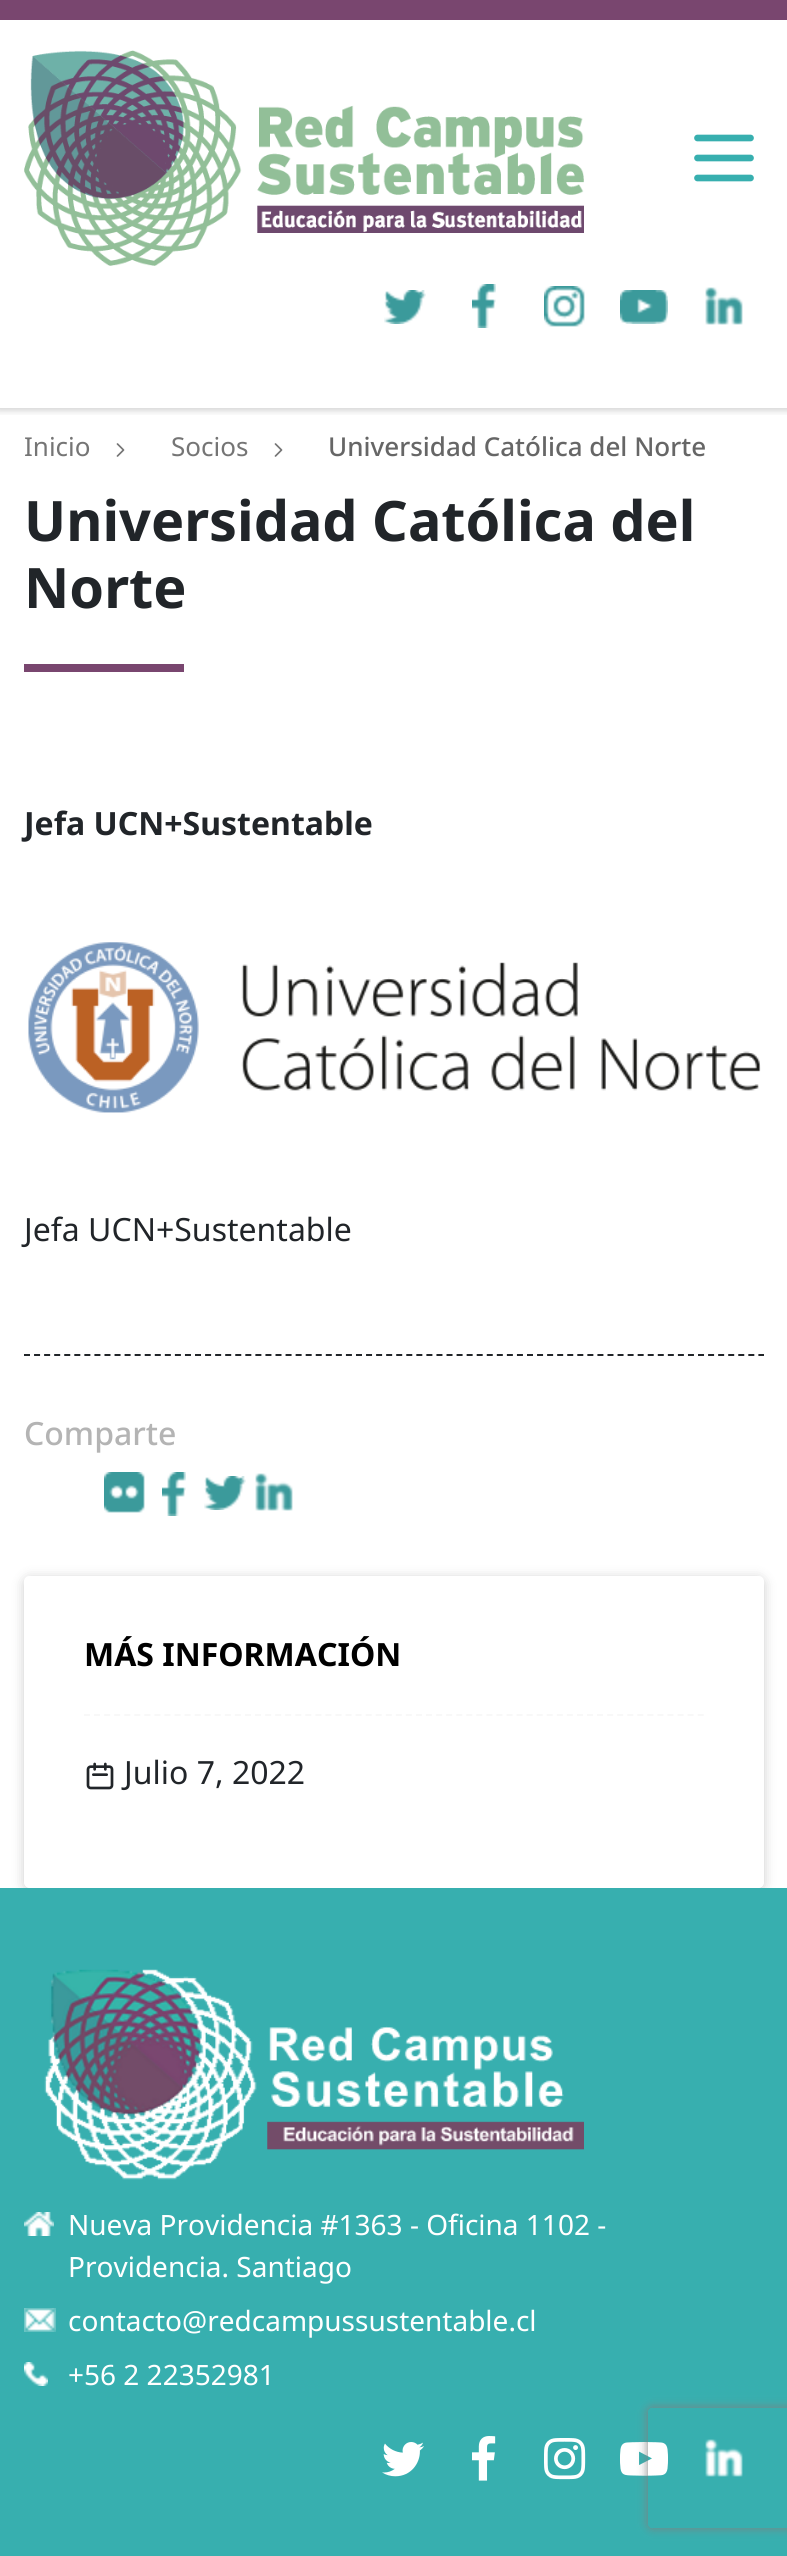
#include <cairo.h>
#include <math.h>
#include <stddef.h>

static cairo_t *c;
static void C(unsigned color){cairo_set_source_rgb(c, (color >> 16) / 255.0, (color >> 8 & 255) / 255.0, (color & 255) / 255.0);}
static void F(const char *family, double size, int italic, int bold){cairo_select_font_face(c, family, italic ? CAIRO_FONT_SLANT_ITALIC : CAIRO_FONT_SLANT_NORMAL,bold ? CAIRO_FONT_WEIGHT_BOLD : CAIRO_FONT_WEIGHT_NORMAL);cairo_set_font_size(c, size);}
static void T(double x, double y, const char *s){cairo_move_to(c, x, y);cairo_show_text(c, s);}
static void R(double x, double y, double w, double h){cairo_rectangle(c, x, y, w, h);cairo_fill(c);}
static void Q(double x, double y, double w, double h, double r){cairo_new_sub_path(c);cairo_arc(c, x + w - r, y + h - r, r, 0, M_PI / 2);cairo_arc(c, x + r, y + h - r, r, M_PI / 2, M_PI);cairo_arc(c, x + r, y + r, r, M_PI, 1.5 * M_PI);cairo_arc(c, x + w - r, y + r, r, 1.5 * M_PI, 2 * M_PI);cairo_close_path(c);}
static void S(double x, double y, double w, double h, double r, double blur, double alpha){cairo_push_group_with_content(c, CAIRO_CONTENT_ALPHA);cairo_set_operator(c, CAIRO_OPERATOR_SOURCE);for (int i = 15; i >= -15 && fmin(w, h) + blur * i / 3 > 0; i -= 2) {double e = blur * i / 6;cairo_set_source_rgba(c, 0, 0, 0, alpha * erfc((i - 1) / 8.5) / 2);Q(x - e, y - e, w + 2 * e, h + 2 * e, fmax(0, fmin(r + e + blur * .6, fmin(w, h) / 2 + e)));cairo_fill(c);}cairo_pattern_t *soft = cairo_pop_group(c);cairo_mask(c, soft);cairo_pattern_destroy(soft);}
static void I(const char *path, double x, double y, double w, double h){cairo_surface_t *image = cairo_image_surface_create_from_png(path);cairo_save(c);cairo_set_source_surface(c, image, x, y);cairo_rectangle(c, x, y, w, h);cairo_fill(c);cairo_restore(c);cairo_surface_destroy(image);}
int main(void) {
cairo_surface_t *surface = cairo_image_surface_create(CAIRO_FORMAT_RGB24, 787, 2556);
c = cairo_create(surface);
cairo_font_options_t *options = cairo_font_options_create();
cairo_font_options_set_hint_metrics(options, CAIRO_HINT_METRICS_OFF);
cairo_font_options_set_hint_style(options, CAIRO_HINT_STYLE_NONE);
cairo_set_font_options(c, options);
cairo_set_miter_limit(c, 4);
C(0xffffff);
cairo_paint(c);
cairo_save(c);
cairo_rectangle(c,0,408,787,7);
cairo_clip(c);
C(0x000000);
S(-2,-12,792,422,0,4,.2);
cairo_restore(c);
C(0x79466f);
R(0,0,787,20);
I("1.png",24,50,560,216);
cairo_new_path(c);
cairo_move_to(c,697.5,138);
cairo_line_to(c,750.5,138);
cairo_move_to(c,697.5,158);
cairo_line_to(c,750.5,158);
cairo_move_to(c,697.5,178);
cairo_line_to(c,750.5,178);
C(0x37afaf);
cairo_set_line_width(c,6.7);
cairo_set_line_cap(c,CAIRO_LINE_CAP_ROUND);
cairo_set_line_join(c,CAIRO_LINE_JOIN_ROUND);
cairo_stroke(c);
I("2.png",384,290,42,34);
I("3.png",472,284,24,44);
I("4.png",544,286,41,41);
I("5.png",620,290,48,34);
I("6.png",705,287,38,38);
F("Noto Sans",26,0,0);
C(0x757575);
T(24,456,"Inicio");
cairo_new_path(c);
cairo_move_to(c,117.5,444);
cairo_line_to(c,123.5,450);
cairo_line_to(c,117.5,456);
cairo_set_line_width(c,1.7);
cairo_stroke(c);
T(171,456,"Socios");
cairo_new_path(c);
cairo_move_to(c,275.5,444);
cairo_line_to(c,281.5,450);
cairo_line_to(c,275.5,456);
cairo_stroke(c);
F("Noto Sans Medium",26,0,0);
C(0x666666);
T(328,456,"Universidad Católica del Norte");
F("Noto Sans",55.75,0,1);
C(0x212529);
T(24,541,"Universidad Católica del");
T(24,608,"Norte");
C(0x79466f);
R(24,664,160,8);
F("Noto Sans",32,0,1);
C(0x212529);
T(24,835,"Jefa UCN+Sustentable");
I("7.png",28,942,733,171);
F("Noto Sans",32,0,0);
T(24,1241,"Jefa UCN+Sustentable");
cairo_new_path(c);
cairo_move_to(c,24,1355);
cairo_line_to(c,764,1355);
cairo_set_line_width(c,2);
cairo_set_line_cap(c,CAIRO_LINE_CAP_BUTT);
cairo_set_line_join(c,CAIRO_LINE_JOIN_MITER);
cairo_set_dash(c,(double[]){6,4.06},2,0);
cairo_stroke(c);
F("Noto Sans Medium",32,0,0);
C(0xb4b4b4);
T(24,1445,"Comparte");
I("8.png",104,1472,41,41);
I("3.png",162,1472,24,44);
I("2.png",204,1476,42,34);
I("6.png",255,1473,38,38);
cairo_save(c);
cairo_set_fill_rule(c,CAIRO_FILL_RULE_EVEN_ODD);
cairo_new_path(c);
cairo_move_to(c,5,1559);
cairo_line_to(c,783,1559);
cairo_line_to(c,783,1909);
cairo_line_to(c,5,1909);
cairo_close_path(c);
cairo_move_to(c,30,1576);
cairo_line_to(c,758,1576);
cairo_curve_to(c,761.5,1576,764,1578.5,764,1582);
cairo_line_to(c,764,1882);
cairo_curve_to(c,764,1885.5,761.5,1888,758,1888);
cairo_line_to(c,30,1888);
cairo_curve_to(c,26.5,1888,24,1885.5,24,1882);
cairo_line_to(c,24,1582);
cairo_curve_to(c,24,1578.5,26.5,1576,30,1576);
cairo_close_path(c);
cairo_clip(c);
C(0x000000);
S(24,1578,740,312,6,6,.2);
cairo_restore(c);
F("Noto Sans",32,0,1);
C(0x000000);
T(84,1666,"MÁS INFORMACIÓN");
cairo_new_path(c);
cairo_move_to(c,84,1715);
cairo_line_to(c,704,1715);
C(0xf8f8f8);
cairo_stroke(c);
I("9.png",86,1762,28,28);
F("Noto Sans",32,0,0);
C(0x212529);
T(124,1784,"Julio 7, 2022");
C(0x37afaf);
R(0,1888,787,668);
I("10.png",44,1969,540,211);
I("11.png",24,2212,30,24);
F("Noto Sans",28,0,0);
C(0xffffff);
T(68,2235,"Nueva Providencia #1363 - Oficina 1102 -");
T(68,2277,"Providencia. Santiago");
I("12.png",24,2308,32,24);
T(68,2331,"contacto@redcampussustentable.cl");
I("13.png",24,2362,24,24);
T(68,2385,"+56 2 22352981");
I("14.png",382,2442,42,35);
I("15.png",472,2436,24,45);
I("16.png",544,2438,42,42);
I("17.png",620,2442,48,34);
I("18.png",705,2439,38,38);
cairo_save(c);
cairo_set_fill_rule(c,CAIRO_FILL_RULE_EVEN_ODD);
cairo_new_path(c);
cairo_move_to(c,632,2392);
cairo_line_to(c,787,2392);
cairo_line_to(c,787,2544);
cairo_line_to(c,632,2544);
cairo_close_path(c);
cairo_move_to(c,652,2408);
cairo_line_to(c,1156,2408);
cairo_curve_to(c,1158,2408,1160,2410,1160,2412);
cairo_line_to(c,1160,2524);
cairo_curve_to(c,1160,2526,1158,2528,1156,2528);
cairo_line_to(c,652,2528);
cairo_curve_to(c,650,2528,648,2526,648,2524);
cairo_line_to(c,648,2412);
cairo_curve_to(c,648,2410,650,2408,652,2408);
cairo_close_path(c);
cairo_clip(c);
C(0x808080);
S(648,2408,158,120,4,5,1);
cairo_restore(c);
cairo_surface_write_to_png(surface, "o.png");
cairo_font_options_destroy(options);
cairo_destroy(c);
cairo_surface_destroy(surface);
return 0;
}
